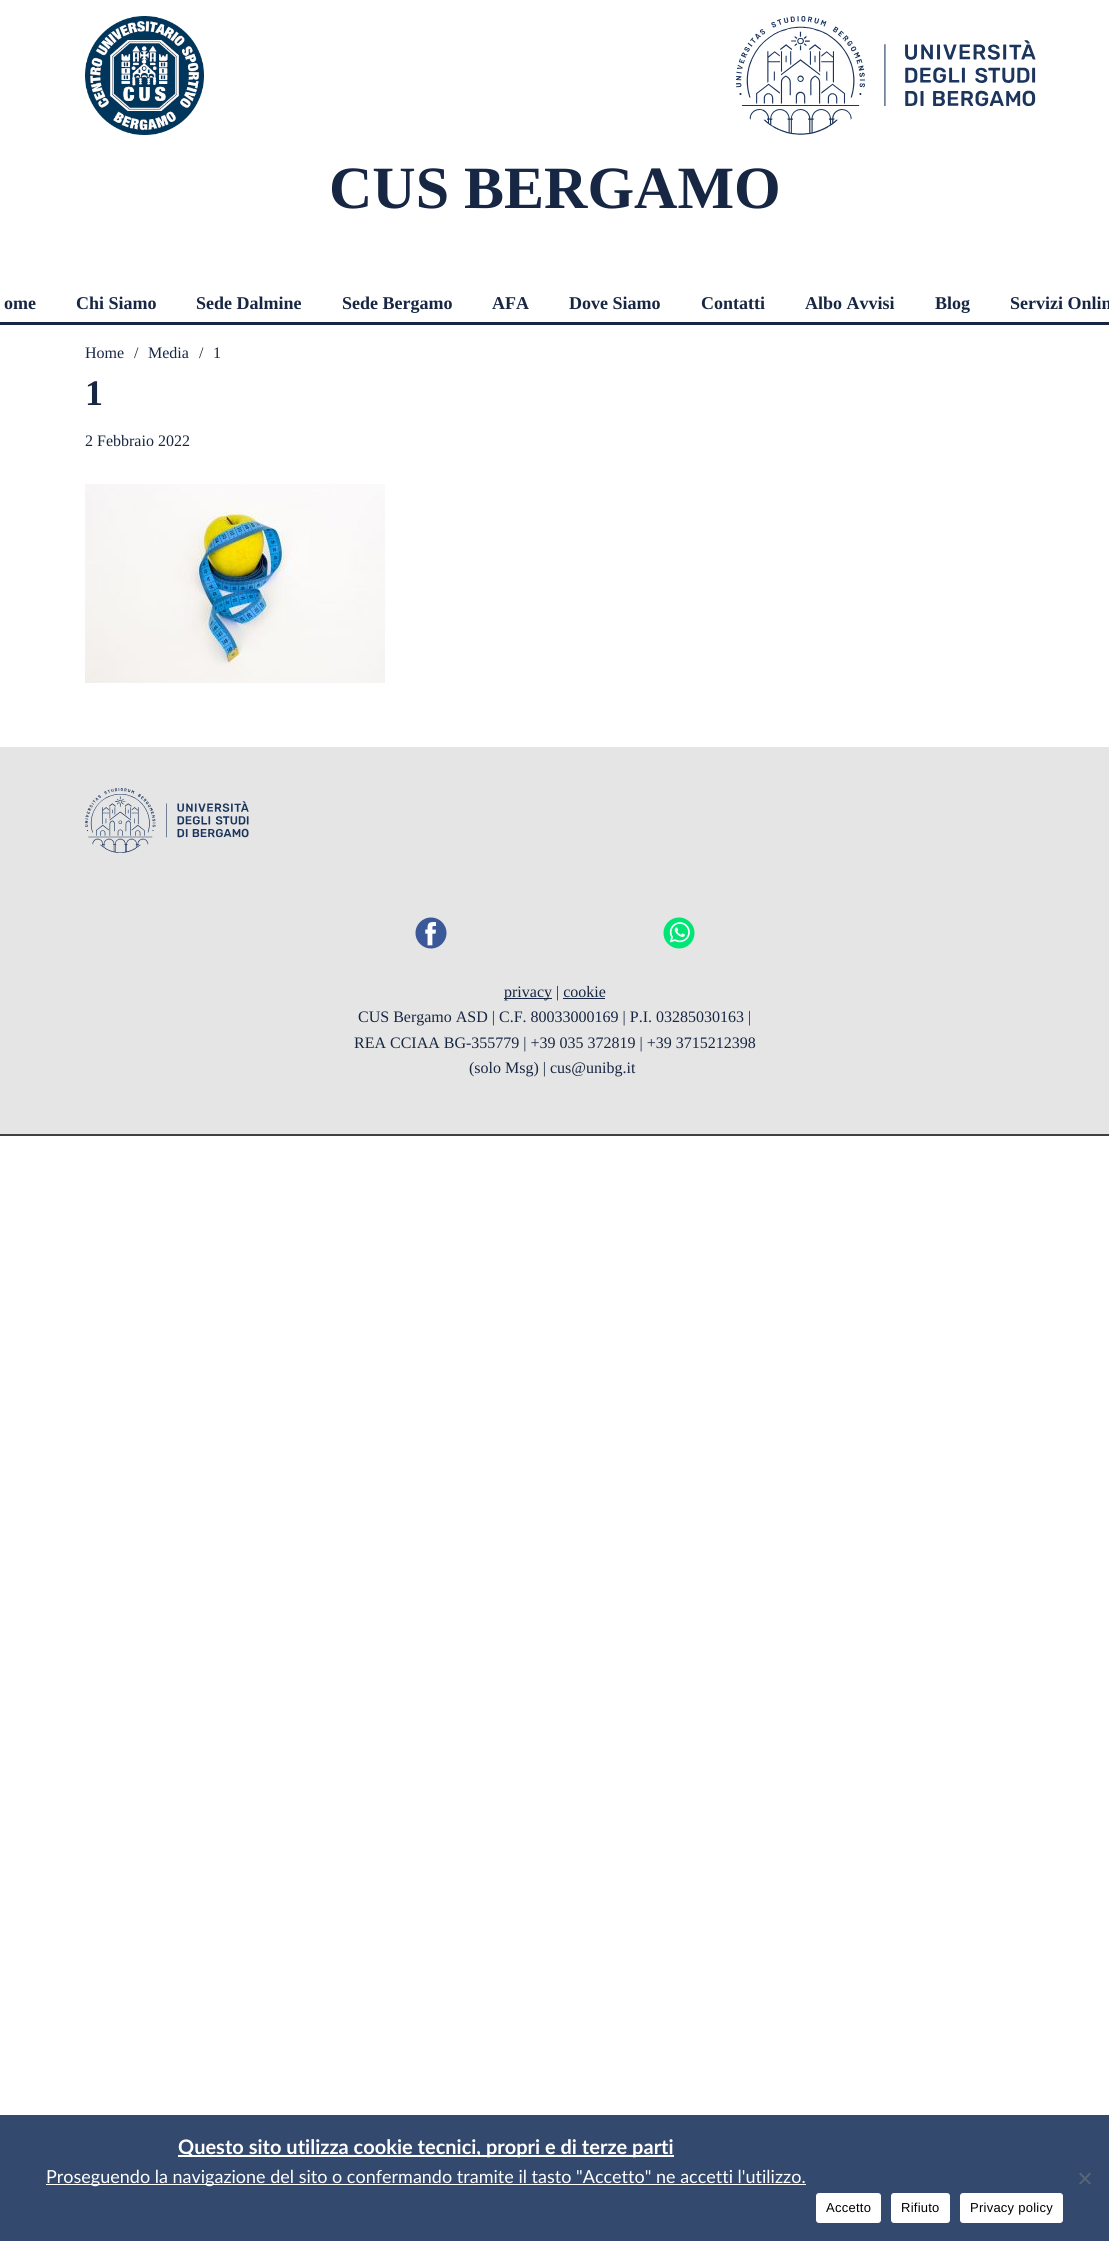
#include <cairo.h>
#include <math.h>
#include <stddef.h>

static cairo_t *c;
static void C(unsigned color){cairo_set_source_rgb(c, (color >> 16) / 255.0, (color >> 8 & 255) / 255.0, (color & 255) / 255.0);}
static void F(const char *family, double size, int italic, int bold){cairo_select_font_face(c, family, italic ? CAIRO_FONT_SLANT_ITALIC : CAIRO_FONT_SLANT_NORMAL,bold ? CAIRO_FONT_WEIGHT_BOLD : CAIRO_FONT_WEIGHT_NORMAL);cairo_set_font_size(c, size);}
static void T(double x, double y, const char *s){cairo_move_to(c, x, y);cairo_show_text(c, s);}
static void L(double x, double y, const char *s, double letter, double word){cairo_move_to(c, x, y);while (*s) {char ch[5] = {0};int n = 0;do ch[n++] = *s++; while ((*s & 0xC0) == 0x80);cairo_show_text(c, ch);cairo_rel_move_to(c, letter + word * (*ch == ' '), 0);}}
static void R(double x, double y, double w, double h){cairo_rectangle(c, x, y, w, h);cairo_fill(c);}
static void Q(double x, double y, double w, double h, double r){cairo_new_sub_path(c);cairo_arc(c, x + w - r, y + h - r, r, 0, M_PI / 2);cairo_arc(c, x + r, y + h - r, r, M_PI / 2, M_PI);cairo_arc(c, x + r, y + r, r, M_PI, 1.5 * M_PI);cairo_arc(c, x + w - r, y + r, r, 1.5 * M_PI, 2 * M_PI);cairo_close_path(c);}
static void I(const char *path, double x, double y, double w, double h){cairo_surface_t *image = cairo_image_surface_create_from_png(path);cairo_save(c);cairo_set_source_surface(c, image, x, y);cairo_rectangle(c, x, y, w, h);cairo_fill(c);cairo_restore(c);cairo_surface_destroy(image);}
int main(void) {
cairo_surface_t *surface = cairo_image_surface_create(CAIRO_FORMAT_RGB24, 1109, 2241);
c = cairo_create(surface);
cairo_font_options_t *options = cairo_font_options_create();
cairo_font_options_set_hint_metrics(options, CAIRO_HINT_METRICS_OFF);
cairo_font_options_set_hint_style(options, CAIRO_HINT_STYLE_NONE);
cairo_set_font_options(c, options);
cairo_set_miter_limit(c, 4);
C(0xffffff);
cairo_paint(c);
C(0x172642);
R(0,322,1109,3);
I("1.png",85,16,119,119);
I("2.png",736,16,300,119);
F("Liberation Serif",60,0,1);
T(329,208,"CUS BERGAMO");
F("Liberation Serif",18,0,1);
T(4,309,"ome");
T(76,309,"Chi Siamo");
T(196,309,"Sede Dalmine");
T(342,309,"Sede Bergamo");
T(492,309,"AFA");
T(569,309,"Dove Siamo");
T(701,309,"Contatti");
T(805,309,"Albo Avvisi");
T(935,309,"Blog");
T(1010,309,"Servizi Onlin");
F("Liberation Serif",16,0,0);
T(85,358,"Home");
T(134,358,"/");
T(148,358,"Media");
T(199,358,"/");
T(213,358,"1");
F("Liberation Serif",36,0,1);
T(85,405,"1");
F("Liberation Serif",16,0,0);
T(85,446,"2 Febbraio 2022");
I("3.png",85,484,300,199);
C(0xe5e5e5);
R(0,747,1109,387);
C(0x404040);
R(0,1134,1109,2);
I("4.png",85,788,164,65);
I("5.png",415,917,32,32);
I("6.png",663,917,32,32);
C(0x172642);
R(504,998,48,1);
T(504,997,"privacy | cookie");
R(563,998,42,1);
T(358,1022,"CUS Bergamo ASD | C.F. 80033000169 | P.I. 03285030163 |");
T(354,1048,"REA CCIAA BG-355779 | +39 035 372819 | +39 3715212398");
T(469,1073,"(solo Msg) | cus@unibg.it");
C(0x33496d);
R(0,2115,1109,126);
C(0xffffff);
R(178,2155,496,2);
F("Lato",20,0,1);
T(178,2154,"Questo sito utilizza cookie tecnici, propri e di terze parti");
R(46,2184,760,1);
F("Lato",18,0,0);
T(46,2183,"Proseguendo la navigazione del sito o confermando tramite il tasto \"Accetto\" ne accetti l'utilizzo.");
C(0x5a6577);
cairo_new_path(c);
cairo_move_to(c,1089.5,2172.5);
cairo_line_to(c,1091,2174);
cairo_line_to(c,1080.5,2184.5);
cairo_line_to(c,1079,2183.5);
cairo_close_path(c);
cairo_fill(c);
cairo_new_path(c);
cairo_move_to(c,1079,2174);
cairo_line_to(c,1080.5,2172.5);
cairo_line_to(c,1091,2183.5);
cairo_line_to(c,1089.5,2184.5);
cairo_close_path(c);
cairo_fill(c);
C(0xffffff);
Q(816,2193,65,30,3);
cairo_fill(c);
F("Liberation Sans",13,0,0);
C(0x000000);
L(826,2212,"Accetto",.25,0);
C(0xffffff);
Q(891,2193,59,30,3);
cairo_fill(c);
C(0x000000);
L(901,2212,"Rifiuto",.25,0);
C(0xffffff);
Q(960,2193,103,30,3);
cairo_fill(c);
C(0x000000);
L(970,2212,"Privacy policy",.25,0);
cairo_surface_write_to_png(surface, "o.png");
cairo_font_options_destroy(options);
cairo_destroy(c);
cairo_surface_destroy(surface);
return 0;
}
